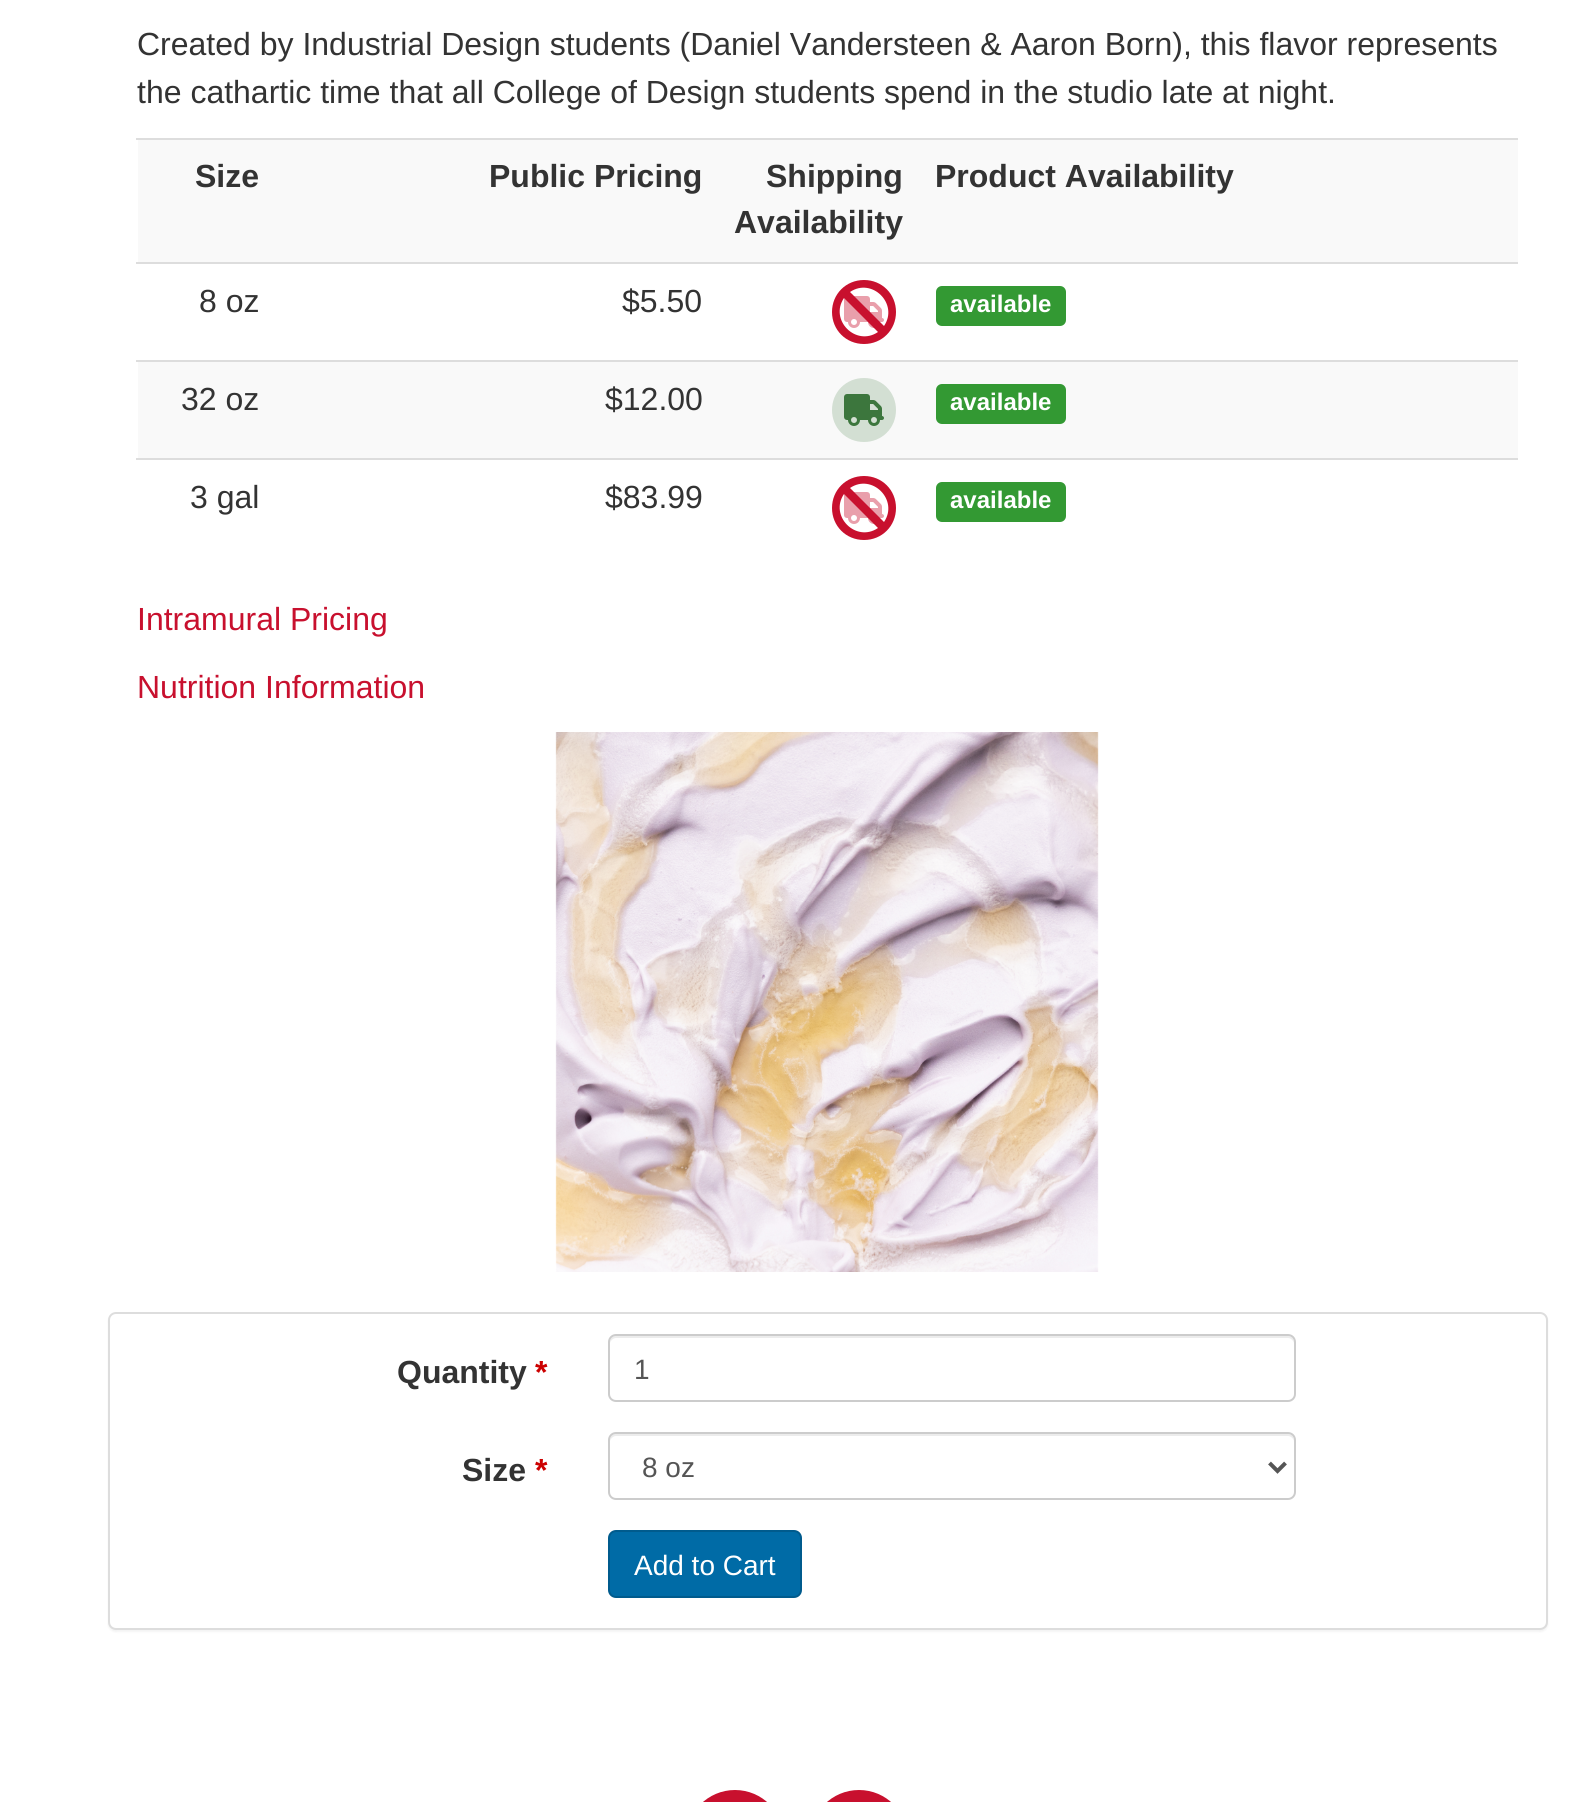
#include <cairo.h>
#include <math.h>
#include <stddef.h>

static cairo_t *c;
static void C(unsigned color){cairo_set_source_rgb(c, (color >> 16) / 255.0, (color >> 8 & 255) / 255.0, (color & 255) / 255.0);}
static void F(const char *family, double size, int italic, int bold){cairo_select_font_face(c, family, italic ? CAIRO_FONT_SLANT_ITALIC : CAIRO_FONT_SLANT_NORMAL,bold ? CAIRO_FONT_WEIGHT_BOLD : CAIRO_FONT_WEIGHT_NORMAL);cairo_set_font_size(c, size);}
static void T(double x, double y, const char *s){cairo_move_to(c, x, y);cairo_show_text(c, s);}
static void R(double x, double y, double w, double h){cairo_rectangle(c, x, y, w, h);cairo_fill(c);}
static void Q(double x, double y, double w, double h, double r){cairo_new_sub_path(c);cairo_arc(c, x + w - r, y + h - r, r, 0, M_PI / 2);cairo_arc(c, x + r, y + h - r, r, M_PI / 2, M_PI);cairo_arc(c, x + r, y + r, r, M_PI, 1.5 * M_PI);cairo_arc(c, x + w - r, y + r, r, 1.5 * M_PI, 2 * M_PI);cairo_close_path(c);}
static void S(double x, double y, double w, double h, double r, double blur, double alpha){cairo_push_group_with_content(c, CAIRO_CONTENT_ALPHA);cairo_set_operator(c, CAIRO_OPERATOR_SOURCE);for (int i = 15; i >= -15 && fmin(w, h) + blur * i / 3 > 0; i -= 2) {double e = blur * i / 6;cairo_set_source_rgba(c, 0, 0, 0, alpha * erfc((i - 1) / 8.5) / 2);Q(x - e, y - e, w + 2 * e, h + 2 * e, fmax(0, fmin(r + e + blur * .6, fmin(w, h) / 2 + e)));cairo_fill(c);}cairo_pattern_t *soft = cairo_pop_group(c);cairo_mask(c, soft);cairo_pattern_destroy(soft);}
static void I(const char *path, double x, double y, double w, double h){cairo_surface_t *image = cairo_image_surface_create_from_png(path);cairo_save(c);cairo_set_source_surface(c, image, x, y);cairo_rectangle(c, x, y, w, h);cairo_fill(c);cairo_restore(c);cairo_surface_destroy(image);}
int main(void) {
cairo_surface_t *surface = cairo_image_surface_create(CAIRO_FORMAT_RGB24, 1594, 1802);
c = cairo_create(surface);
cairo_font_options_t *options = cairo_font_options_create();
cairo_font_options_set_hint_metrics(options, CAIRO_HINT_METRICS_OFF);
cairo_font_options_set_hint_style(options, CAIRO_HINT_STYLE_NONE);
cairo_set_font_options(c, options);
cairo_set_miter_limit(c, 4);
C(0xffffff);
cairo_paint(c);
F("Liberation Sans",32,0,0);
C(0x333333);
T(137,55,"Created by Industrial Design students (Daniel Vandersteen & Aaron Born), this flavor represents");
T(137,103,"the cathartic time that all College of Design students spend in the studio late at night.");
C(0xf9f9f9);
R(138,140,1380,122);
F("Liberation Sans",32,0,1);
C(0x333333);
T(195,187,"Size");
T(489,187,"Public Pricing");
T(766,187,"Shipping");
T(734,233,"Availability");
C(0xdddddd);
R(136,138,1382,2);
C(0x333333);
T(935,187,"Product Availability");
F("Liberation Sans",32,0,0);
T(199,312,"8 oz");
T(622,312,"$5.50");
I("1.png",844,296,40,32);
C(0xc8102e);
cairo_new_path(c);
cairo_move_to(c,878,332);
cairo_line_to(c,844,298);
cairo_curve_to(c,829,320,856,347,878,332);
cairo_close_path(c);
cairo_move_to(c,884,326);
cairo_curve_to(c,899,304,872,277,850,292);
cairo_close_path(c);
cairo_move_to(c,832,312);
cairo_curve_to(c,832,294,846,280,864,280);
cairo_curve_to(c,882,280,896,294,896,312);
cairo_curve_to(c,896,330,882,344,864,344);
cairo_curve_to(c,846,344,832,330,832,312);
cairo_close_path(c);
cairo_fill(c);
C(0xdddddd);
R(136,262,1382,2);
C(0x339933);
Q(936,286,130,40,6);
cairo_fill(c);
F("Liberation Sans",24,0,1);
C(0xffffff);
T(950,312,"available");
C(0xf9f9f9);
R(138,362,1380,96);
F("Liberation Sans",32,0,0);
C(0x333333);
T(181,410,"32 oz");
T(605,410,"$12.00");
C(0xd3dfd3);
cairo_new_path(c);
cairo_move_to(c,864,442);
cairo_curve_to(c,882,442,896,428,896,410);
cairo_curve_to(c,896,392,882,378,864,378);
cairo_curve_to(c,846,378,832,392,832,410);
cairo_curve_to(c,832,428,846,442,864,442);
cairo_close_path(c);
cairo_fill(c);
I("2.png",844,394,40,32);
C(0xdddddd);
R(136,360,1382,2);
C(0x339933);
Q(936,384,130,40,6);
cairo_fill(c);
F("Liberation Sans",24,0,1);
C(0xffffff);
T(950,410,"available");
F("Liberation Sans",32,0,0);
C(0x333333);
T(190,508,"3 gal");
T(605,508,"$83.99");
I("1.png",844,492,40,32);
C(0xc8102e);
cairo_new_path(c);
cairo_move_to(c,878,528);
cairo_line_to(c,844,494);
cairo_curve_to(c,829,516,856,543,878,528);
cairo_close_path(c);
cairo_move_to(c,884,522);
cairo_curve_to(c,899,500,872,473,850,488);
cairo_close_path(c);
cairo_move_to(c,832,508);
cairo_curve_to(c,832,490,846,476,864,476);
cairo_curve_to(c,882,476,896,490,896,508);
cairo_curve_to(c,896,526,882,540,864,540);
cairo_curve_to(c,846,540,832,526,832,508);
cairo_close_path(c);
cairo_fill(c);
C(0xdddddd);
R(136,458,1382,2);
C(0x339933);
Q(936,482,130,40,6);
cairo_fill(c);
F("Liberation Sans",24,0,1);
C(0xffffff);
T(950,508,"available");
F("Liberation Sans",32,0,0);
C(0xc8102e);
T(137,630,"Intramural Pricing");
T(137,698,"Nutrition Information");
I("3.png",555,732,544,540);
C(0x000000);
S(108,1314,1440,318,8,1,.05);
C(0xffffff);
Q(109,1313,1438,316,7);
cairo_fill_preserve(c);
C(0xdddddd);
cairo_stroke(c);
F("Liberation Sans",32,0,1);
C(0x333333);
T(397,1383,"Quantity");
C(0xcc0000);
T(535,1383,"*");
C(0xececec);
cairo_new_path(c);
cairo_move_to(c,616,1338);
cairo_line_to(c,1288,1338);
cairo_curve_to(c,1291,1338,1294,1341,1294,1344);
cairo_curve_to(c,1294,1340,1293,1336,1288,1336);
cairo_line_to(c,616,1336);
cairo_curve_to(c,611,1336,610,1340,610,1344);
cairo_curve_to(c,610,1341,613,1338,616,1338);
cairo_close_path(c);
cairo_fill(c);
Q(609,1335,686,66,7);
C(0xcccccc);
cairo_stroke(c);
F("Liberation Sans",28,0,0);
C(0x555555);
T(634,1379,"1");
F("Liberation Sans",32,0,1);
C(0x333333);
T(462,1481,"Size");
C(0xcc0000);
T(535,1481,"*");
C(0xececec);
cairo_new_path(c);
cairo_move_to(c,616,1436);
cairo_line_to(c,1288,1436);
cairo_curve_to(c,1291,1436,1294,1439,1294,1442);
cairo_curve_to(c,1294,1438,1293,1434,1288,1434);
cairo_line_to(c,616,1434);
cairo_curve_to(c,611,1434,610,1438,610,1442);
cairo_curve_to(c,610,1439,613,1436,616,1436);
cairo_close_path(c);
cairo_fill(c);
Q(609,1433,686,66,7);
C(0xcccccc);
cairo_stroke(c);
cairo_new_path(c);
cairo_move_to(c,1269.5,1463);
cairo_line_to(c,1277.5,1471);
cairo_line_to(c,1285.5,1463);
C(0x555555);
cairo_set_line_width(c,4);
cairo_stroke(c);
F("Liberation Sans",28,0,0);
T(642,1477,"8 oz");
C(0x006ba6);
Q(609,1531,192,66,7);
cairo_fill_preserve(c);
C(0x005b8d);
cairo_set_line_width(c,2);
cairo_stroke(c);
C(0xffffff);
T(634,1575,"Add to Cart");
C(0xc8102e);
cairo_new_path(c);
cairo_move_to(c,735,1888);
cairo_curve_to(c,762,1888,784,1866,784,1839);
cairo_curve_to(c,784,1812,762,1790,735,1790);
cairo_curve_to(c,708,1790,686,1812,686,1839);
cairo_curve_to(c,686,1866,708,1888,735,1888);
cairo_close_path(c);
cairo_fill(c);
cairo_new_path(c);
cairo_move_to(c,859,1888);
cairo_curve_to(c,886,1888,908,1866,908,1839);
cairo_curve_to(c,908,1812,886,1790,859,1790);
cairo_curve_to(c,832,1790,810,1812,810,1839);
cairo_curve_to(c,810,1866,832,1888,859,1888);
cairo_close_path(c);
cairo_fill(c);
cairo_surface_write_to_png(surface, "o.png");
cairo_font_options_destroy(options);
cairo_destroy(c);
cairo_surface_destroy(surface);
return 0;
}
